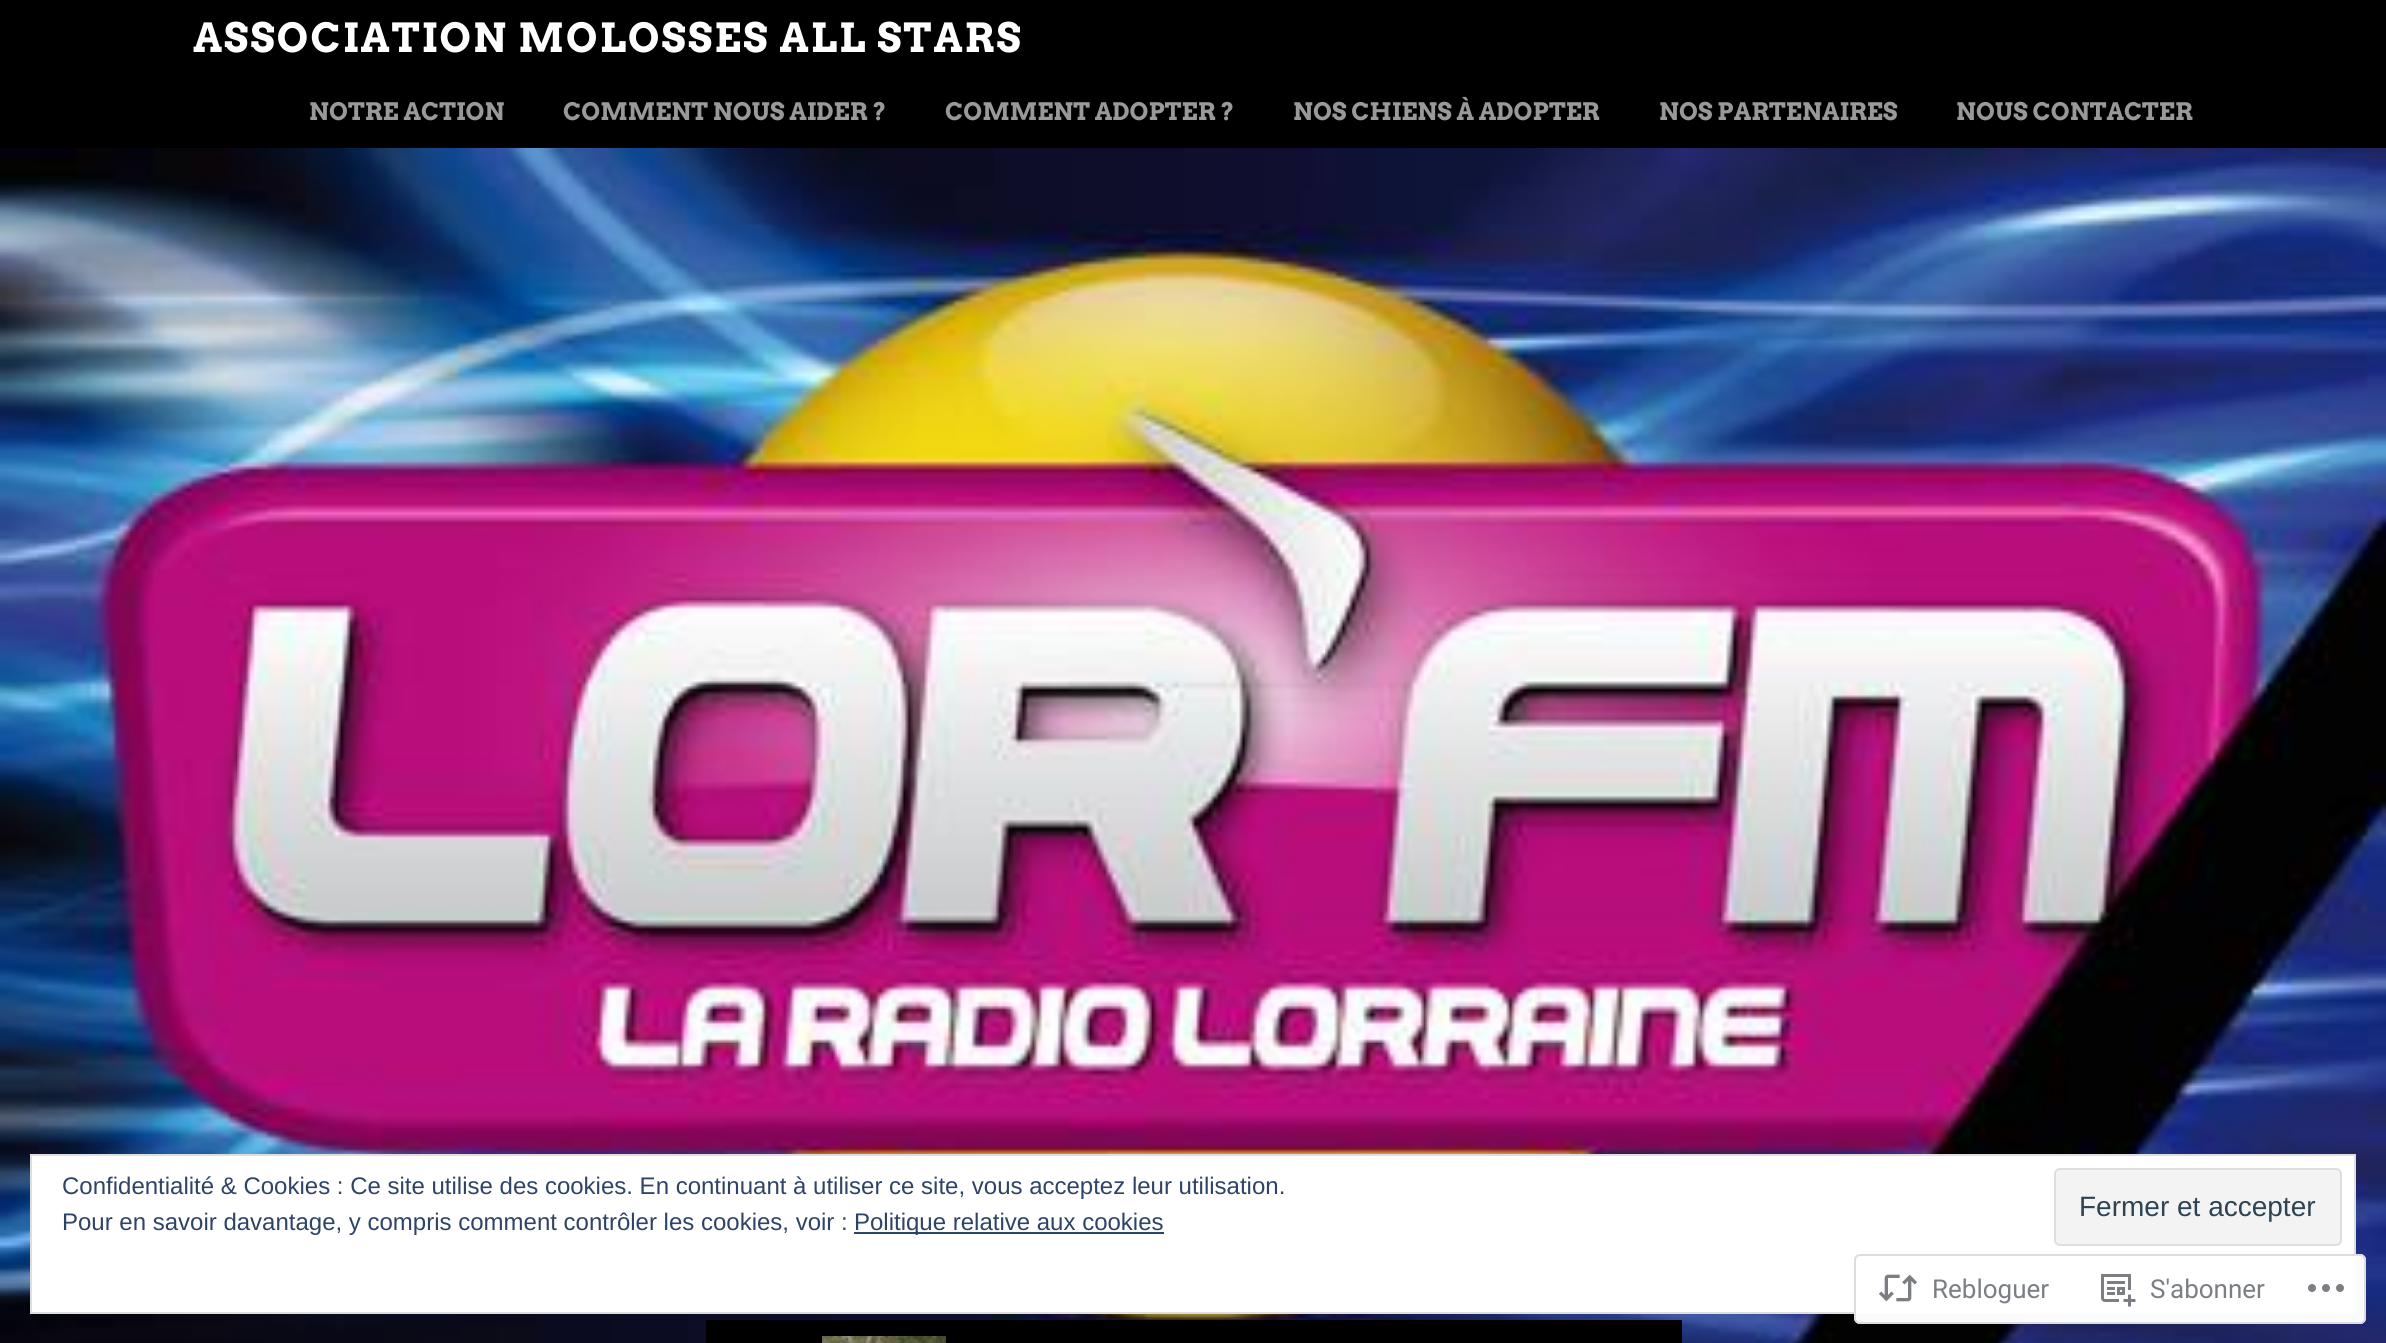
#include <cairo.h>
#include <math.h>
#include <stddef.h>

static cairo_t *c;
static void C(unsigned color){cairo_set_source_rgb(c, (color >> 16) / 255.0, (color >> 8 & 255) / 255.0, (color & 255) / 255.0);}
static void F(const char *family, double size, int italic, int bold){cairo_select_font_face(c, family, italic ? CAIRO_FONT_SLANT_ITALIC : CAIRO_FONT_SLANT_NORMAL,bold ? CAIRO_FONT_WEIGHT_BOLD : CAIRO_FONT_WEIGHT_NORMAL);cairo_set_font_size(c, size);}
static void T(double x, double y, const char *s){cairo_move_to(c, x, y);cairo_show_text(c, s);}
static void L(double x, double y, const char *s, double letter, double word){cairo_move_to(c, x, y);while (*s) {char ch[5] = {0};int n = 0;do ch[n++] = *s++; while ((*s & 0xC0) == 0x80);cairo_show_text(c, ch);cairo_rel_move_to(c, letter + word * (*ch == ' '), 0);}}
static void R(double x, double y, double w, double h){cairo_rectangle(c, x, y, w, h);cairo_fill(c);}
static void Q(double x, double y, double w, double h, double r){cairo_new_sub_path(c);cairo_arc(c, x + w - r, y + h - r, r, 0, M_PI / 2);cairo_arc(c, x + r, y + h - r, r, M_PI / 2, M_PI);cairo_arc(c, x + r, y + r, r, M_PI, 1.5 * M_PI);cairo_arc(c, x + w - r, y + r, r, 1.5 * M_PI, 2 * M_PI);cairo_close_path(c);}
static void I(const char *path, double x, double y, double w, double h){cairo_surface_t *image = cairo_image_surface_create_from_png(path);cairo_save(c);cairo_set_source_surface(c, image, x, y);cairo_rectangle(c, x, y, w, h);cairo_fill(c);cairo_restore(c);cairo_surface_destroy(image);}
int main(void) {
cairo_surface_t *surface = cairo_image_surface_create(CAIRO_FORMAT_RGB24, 2386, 1343);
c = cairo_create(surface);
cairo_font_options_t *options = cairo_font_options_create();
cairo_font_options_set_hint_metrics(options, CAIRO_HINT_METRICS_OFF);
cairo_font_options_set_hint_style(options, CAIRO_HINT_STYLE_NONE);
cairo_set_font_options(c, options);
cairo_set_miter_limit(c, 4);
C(0x000000);
cairo_paint(c);
F("Arvo",40,0,1);
C(0xffffff);
L(193,52,"ASSOCIATION MOLOSSES ALL STARS",2,0);
F("Arvo",24,0,1);
C(0x999999);
T(309,120,"NOTRE ACTION");
T(563,120,"COMMENT NOUS AIDER ?");
T(945,120,"COMMENT ADOPTER ?");
T(1293,120,"NOS CHIENS À ADOPTER");
T(1659,120,"NOS PARTENAIRES");
T(1956,120,"NOUS CONTACTER");
I("1.png",0,148,2386,1195);
C(0x000000);
R(706,1320,976,23);
I("2.png",822,1336,124,7);
C(0xffffff);
cairo_rectangle(c,31,1155,2324,158);
cairo_fill_preserve(c);
C(0xdedede);
cairo_stroke(c);
F("Liberation Sans",24,0,0);
C(0x2e4467);
T(62,1194,"Confidentialité & Cookies : Ce site utilise des cookies. En continuant à utiliser ce site, vous acceptez leur utilisation.");
T(62,1230,"Pour en savoir davantage, y compris comment contrôler les cookies, voir :");
R(854,1232,310,2);
T(854,1230,"Politique relative aux cookies");
C(0xf3f3f3);
Q(2055,1169,286,76,5);
cairo_fill_preserve(c);
C(0xdedede);
cairo_stroke(c);
F("Liberation Sans",28,0,0);
C(0x2e4453);
T(2079,1216,"Fermer et accepter");
cairo_set_source_rgba(c,1,1,1,0.98);
Q(1854,1254,512,70,6);
cairo_fill(c);
Q(1855,1255,510,68,5);
cairo_set_source_rgba(c,0.863,0.863,0.871,0.98);
cairo_stroke(c);
I("3.png",1878,1274,40,28);
F("Roboto",26,0,0);
C(0x7b7f85);
T(1932,1298,"Rebloguer");
I("4.png",2101,1274,35,33);
T(2150,1298,"S'abonner");
I("5.png",2308,1284,36,8);
cairo_surface_write_to_png(surface, "o.png");
cairo_font_options_destroy(options);
cairo_destroy(c);
cairo_surface_destroy(surface);
return 0;
}
